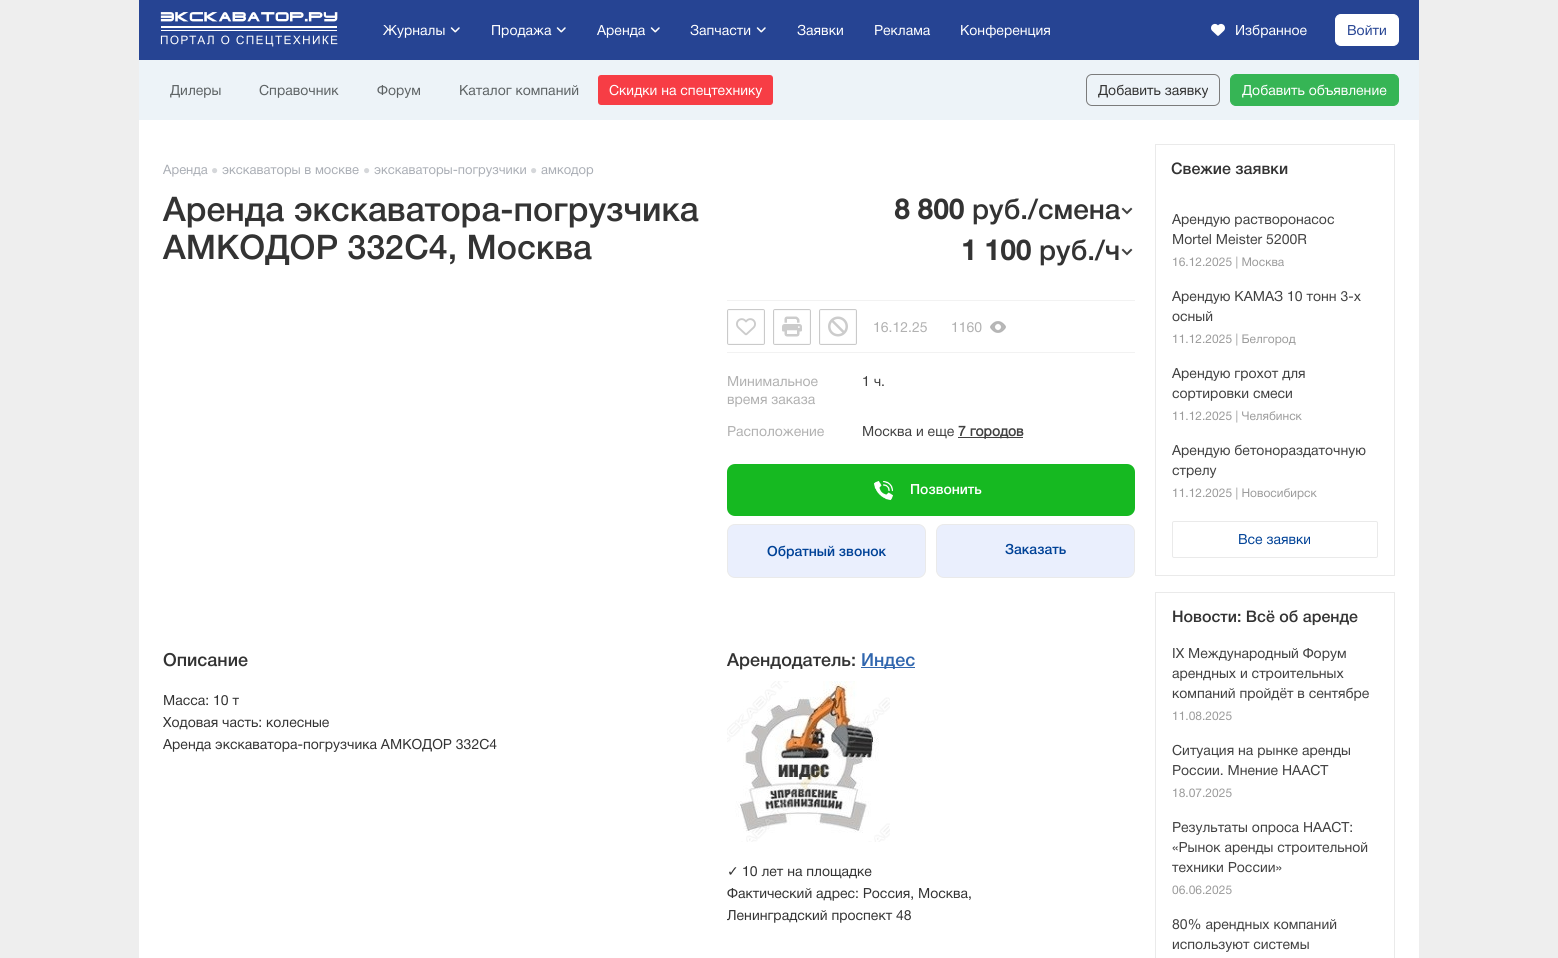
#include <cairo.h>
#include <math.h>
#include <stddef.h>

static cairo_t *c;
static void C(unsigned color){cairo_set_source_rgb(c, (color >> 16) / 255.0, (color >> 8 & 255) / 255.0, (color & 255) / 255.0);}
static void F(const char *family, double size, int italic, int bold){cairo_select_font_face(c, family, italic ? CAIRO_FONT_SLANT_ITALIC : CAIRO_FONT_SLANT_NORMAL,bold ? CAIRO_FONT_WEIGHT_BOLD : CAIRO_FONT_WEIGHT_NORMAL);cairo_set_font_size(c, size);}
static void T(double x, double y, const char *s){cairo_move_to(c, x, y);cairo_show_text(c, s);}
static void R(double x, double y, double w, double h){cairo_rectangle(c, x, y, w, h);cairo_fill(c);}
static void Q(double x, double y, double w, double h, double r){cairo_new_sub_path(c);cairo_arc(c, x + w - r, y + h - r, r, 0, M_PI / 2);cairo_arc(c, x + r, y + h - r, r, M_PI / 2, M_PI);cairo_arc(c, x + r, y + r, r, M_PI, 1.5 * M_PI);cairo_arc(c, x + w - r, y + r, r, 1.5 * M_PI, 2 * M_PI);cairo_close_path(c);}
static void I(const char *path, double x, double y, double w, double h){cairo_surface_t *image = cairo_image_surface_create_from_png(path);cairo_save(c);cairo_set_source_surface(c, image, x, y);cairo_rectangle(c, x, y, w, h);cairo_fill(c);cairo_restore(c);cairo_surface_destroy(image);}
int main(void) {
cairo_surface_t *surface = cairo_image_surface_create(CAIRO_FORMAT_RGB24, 1558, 958);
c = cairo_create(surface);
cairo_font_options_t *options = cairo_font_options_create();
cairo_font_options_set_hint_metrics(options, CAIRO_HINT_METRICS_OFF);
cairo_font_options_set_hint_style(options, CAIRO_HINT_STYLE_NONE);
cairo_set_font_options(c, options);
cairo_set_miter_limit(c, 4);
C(0xeeeeee);
cairo_paint(c);
C(0xffffff);
R(139,120,1280,838);
C(0x264493);
R(139,0,1280,60);
I("1.png",160,12,178,35);
F("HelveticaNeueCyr",14,0,0);
C(0xffffff);
T(383,35,"Журналы");
I("2.png",450,27,10,6);
T(491,35,"Продажа");
I("2.png",556,27,10,6);
T(597,35,"Аренда");
I("2.png",650,27,10,6);
T(690,35,"Запчасти");
I("2.png",756,27,10,6);
T(797,35,"Заявки");
T(874,35,"Реклама");
T(960,35,"Конференция");
I("3.png",1211,23,14,13);
T(1235,35,"Избранное");
Q(1335.5,14.5,63,31,5.5);
cairo_fill_preserve(c);
cairo_set_line_width(c,1);
cairo_stroke(c);
C(0x264493);
T(1347,35,"Войти");
C(0xedf3f8);
R(139,60,1280,60);
C(0x5e6365);
T(170,95,"Дилеры");
T(259,95,"Справочник");
T(377,95,"Форум");
T(459,95,"Каталог компаний");
C(0xf73d45);
Q(598,75,175,30,3);
cairo_fill(c);
C(0xffffff);
T(609,95,"Скидки на спецтехнику");
Q(1086.5,74.5,133,31,5.5);
C(0x7b7b7b);
cairo_stroke(c);
C(0x333333);
T(1098,95,"Добавить заявку");
C(0x36b555);
Q(1230.5,74.5,168,31,5.5);
cairo_fill_preserve(c);
cairo_stroke(c);
C(0xffffff);
T(1242,95,"Добавить объявление");
F("HelveticaNeueCyr",13,0,0);
C(0xaaaeb5);
T(163,174,"Аренда");
F("Liberation Sans",12,0,0);
C(0xd5d7da);
T(211,174,"●");
F("HelveticaNeueCyr",13,0,0);
C(0xaaaeb5);
T(222,174,"экскаваторы в москве");
F("Liberation Sans",12,0,0);
C(0xd5d7da);
T(363,174,"●");
F("HelveticaNeueCyr",13,0,0);
C(0xaaaeb5);
T(374,174,"экскаваторы-погрузчики");
F("Liberation Sans",12,0,0);
C(0xd5d7da);
T(530,174,"●");
F("HelveticaNeueCyr",13,0,0);
C(0xaaaeb5);
T(541,174,"амкодор");
F("HelveticaNeueCyr Medium",34,0,0);
C(0x333333);
T(163,221,"Аренда экскаватора-погрузчика");
T(163,259,"АМКОДОР 332C4, Москва");
I("4.png",1121,207,12,8);
F("HelveticaNeueCyr",28,0,1);
T(894,219,"8 800");
F("HelveticaNeueCyr Medium",28,0,0);
T(972,219,"руб./смена");
I("4.png",1121,248,12,8);
F("HelveticaNeueCyr",28,0,1);
T(961,260,"1 100");
F("HelveticaNeueCyr Medium",28,0,0);
T(1039,260,"руб./ч");
C(0xf2f2f2);
R(727,300,408,1);
Q(728.5,310.5,35,33,.5);
C(0xf9f9f9);
cairo_stroke(c);
Q(727.5,309.5,37,35,1.5);
C(0xcacaca);
cairo_stroke(c);
I("5.png",736,318,20,18);
Q(774.5,310.5,35,33,.5);
C(0xf9f9f9);
cairo_stroke(c);
Q(773.5,309.5,37,35,1.5);
C(0xcacaca);
cairo_stroke(c);
I("6.png",782,316,20,21);
Q(820.5,310.5,35,33,.5);
C(0xf9f9f9);
cairo_stroke(c);
Q(819.5,309.5,37,35,1.5);
C(0xcacaca);
cairo_stroke(c);
I("7.png",828,316,20,21);
F("HelveticaNeueCyr",14,0,0);
C(0xb1b1b1);
T(873,332,"16.12.25");
I("8.png",990,321,16,12);
T(951,332,"1160");
C(0xf2f2f2);
R(727,352,408,1);
C(0xb1b1b1);
T(727,386,"Минимальное");
T(727,404,"время заказа");
C(0x414141);
T(862,386,"1 ч.");
C(0xb1b1b1);
T(727,436,"Расположение");
C(0x414141);
T(862,436,"Москва и еще");
R(958,437,65,1);
F("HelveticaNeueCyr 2",14,0,1);
T(958,436,"7 городов");
C(0x16b921);
Q(727,464,408,52,8);
cairo_fill(c);
I("9.png",874,481,19,19);
F("HelveticaNeueCyr Medium",14,0,0);
C(0xffffff);
T(910,494,"Позвонить");
C(0xeaeffd);
Q(727.5,524.5,198,53,7.5);
cairo_fill_preserve(c);
C(0xeaeaea);
cairo_stroke(c);
C(0x004297);
T(767,556,"Обратный звонок");
C(0xeaeffd);
Q(936.5,524.5,198,53,7.5);
cairo_fill_preserve(c);
C(0xeaeaea);
cairo_stroke(c);
C(0x004297);
T(1005,554,"Заказать");
F("HelveticaNeueCyr Medium",18,0,0);
C(0x333333);
T(163,666,"Описание");
F("HelveticaNeueCyr",14,0,0);
T(163,705,"Масса: 10 т");
T(163,727,"Ходовая часть: колесные");
T(163,749,"Аренда экскаватора-погрузчика АМКОДОР 332C4");
F("HelveticaNeueCyr Medium",18,0,0);
T(727,666,"Арендодатель:");
C(0x3066ae);
R(861,667,54,1);
T(861,666,"Индес");
I("10.png",727,681,163,161);
F("DejaVu Sans",14,0,0);
C(0x333333);
T(727,876,"✓");
F("HelveticaNeueCyr",14,0,0);
T(742,876,"10 лет на площадке");
T(727,898,"Фактический адрес: Россия, Москва,");
T(727,920,"Ленинградский проспект 48");
cairo_rectangle(c,1155.5,144.5,239,431);
C(0xeaeaea);
cairo_stroke(c);
F("HelveticaNeueCyr Medium",16,0,0);
C(0x333333);
T(1171,174,"Свежие заявки");
F("HelveticaNeueCyr",14,0,0);
C(0x414141);
T(1172,224,"Арендую растворонасос");
T(1172,244,"Mortel Meister 5200R");
F("HelveticaNeueCyr",12,0,0);
C(0x9b9b9b);
T(1172,266,"16.12.2025 | Москва");
F("HelveticaNeueCyr",14,0,0);
C(0x414141);
T(1172,301,"Арендую КАМАЗ 10 тонн 3-х");
T(1172,321,"осный");
F("HelveticaNeueCyr",12,0,0);
C(0x9b9b9b);
T(1172,343,"11.12.2025 | Белгород");
F("HelveticaNeueCyr",14,0,0);
C(0x414141);
T(1172,378,"Арендую грохот для");
T(1172,398,"сортировки смеси");
F("HelveticaNeueCyr",12,0,0);
C(0x9b9b9b);
T(1172,420,"11.12.2025 | Челябинск");
F("HelveticaNeueCyr",14,0,0);
C(0x414141);
T(1172,455,"Арендую бетонораздаточную");
T(1172,475,"стрелу");
F("HelveticaNeueCyr",12,0,0);
C(0x9b9b9b);
T(1172,497,"11.12.2025 | Новосибирск");
Q(1172.5,521.5,205,36,1.5);
C(0xeaeaea);
cairo_stroke(c);
F("HelveticaNeueCyr",14,0,0);
C(0x004297);
T(1238,544,"Все заявки");
cairo_rectangle(c,1155.5,592.5,239,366);
C(0xeaeaea);
cairo_stroke(c);
F("HelveticaNeueCyr Medium",16,0,0);
C(0x333333);
T(1172,622,"Новости: Всё об аренде");
F("HelveticaNeueCyr",14,0,0);
C(0x414141);
T(1172,658,"IX Международный Форум");
T(1172,678,"арендных и строительных");
T(1172,698,"компаний пройдёт в сентябре");
F("HelveticaNeueCyr",12,0,0);
C(0x9b9b9b);
T(1172,720,"11.08.2025");
F("HelveticaNeueCyr",14,0,0);
C(0x414141);
T(1172,755,"Ситуация на рынке аренды");
T(1172,775,"России. Мнение НААСТ");
F("HelveticaNeueCyr",12,0,0);
C(0x9b9b9b);
T(1172,797,"18.07.2025");
F("HelveticaNeueCyr",14,0,0);
C(0x414141);
T(1172,832,"Результаты опроса НААСТ:");
T(1172,852,"«Рынок аренды строительной");
T(1172,872,"техники России»");
F("HelveticaNeueCyr",12,0,0);
C(0x9b9b9b);
T(1172,894,"06.06.2025");
F("HelveticaNeueCyr",14,0,0);
C(0x414141);
T(1172,929,"80% арендных компаний");
T(1172,949,"используют системы");
cairo_surface_write_to_png(surface, "o.png");
cairo_font_options_destroy(options);
cairo_destroy(c);
cairo_surface_destroy(surface);
return 0;
}
